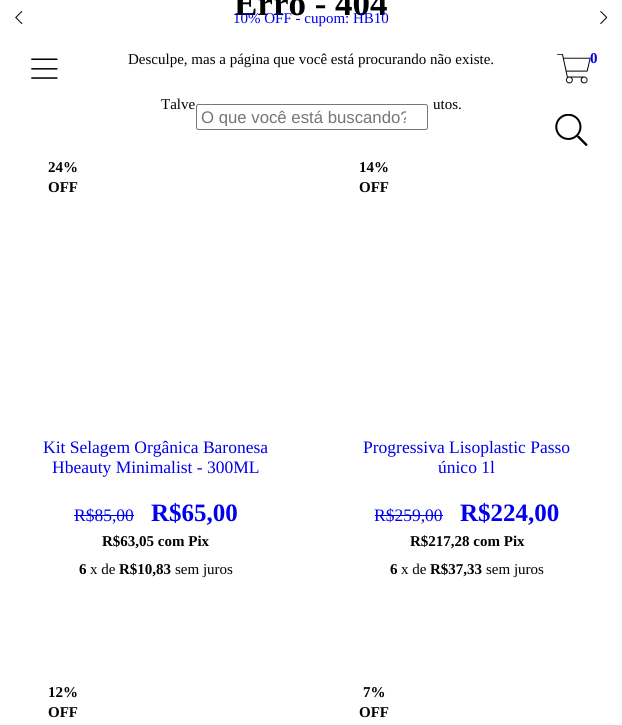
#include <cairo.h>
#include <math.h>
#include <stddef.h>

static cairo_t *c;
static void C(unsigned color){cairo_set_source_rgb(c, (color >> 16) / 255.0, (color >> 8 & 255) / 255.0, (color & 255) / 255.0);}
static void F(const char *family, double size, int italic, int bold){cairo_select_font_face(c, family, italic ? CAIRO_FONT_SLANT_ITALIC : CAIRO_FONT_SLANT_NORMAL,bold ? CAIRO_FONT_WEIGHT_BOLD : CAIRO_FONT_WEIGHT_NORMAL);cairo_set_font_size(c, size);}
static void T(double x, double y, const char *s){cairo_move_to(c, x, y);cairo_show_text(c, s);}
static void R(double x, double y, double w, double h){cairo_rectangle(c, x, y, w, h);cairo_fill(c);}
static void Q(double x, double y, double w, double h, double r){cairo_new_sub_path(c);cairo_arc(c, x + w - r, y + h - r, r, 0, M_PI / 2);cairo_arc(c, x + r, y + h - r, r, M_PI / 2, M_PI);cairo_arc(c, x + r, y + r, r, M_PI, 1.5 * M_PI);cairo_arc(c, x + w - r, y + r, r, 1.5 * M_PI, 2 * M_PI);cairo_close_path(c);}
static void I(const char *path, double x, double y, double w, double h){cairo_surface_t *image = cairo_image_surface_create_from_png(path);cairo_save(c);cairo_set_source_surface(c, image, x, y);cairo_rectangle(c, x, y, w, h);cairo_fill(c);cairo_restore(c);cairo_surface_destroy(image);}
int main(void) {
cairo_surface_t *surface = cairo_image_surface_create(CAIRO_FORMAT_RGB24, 622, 725);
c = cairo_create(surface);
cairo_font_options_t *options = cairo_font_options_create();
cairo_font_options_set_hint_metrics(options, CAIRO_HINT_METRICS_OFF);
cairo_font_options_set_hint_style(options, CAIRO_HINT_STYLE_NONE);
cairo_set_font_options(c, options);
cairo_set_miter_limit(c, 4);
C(0xffffff);
cairo_paint(c);
F("Liberation Serif",35,0,1);
C(0x000000);
T(234,15,"Erro - 404");
F("Liberation Serif",15,0,0);
T(128,64,"Desculpe, mas a página que você está procurando não existe.");
T(161,109,"Talve");
T(433,109,"utos.");
F("Liberation Serif",15,0,1);
T(48,172,"24%");
T(48,192,"OFF");
F("Liberation Serif",17.5,0,0);
C(0x0000ee);
T(43,453,"Kit Selagem Orgânica Baronesa");
T(52,473,"Hbeauty Minimalist - 300ML");
T(74,521,"R$85,00");
R(74,515,60,1);
F("Liberation Serif",25,0,1);
T(151,521,"R$65,00");
F("Liberation Serif",15,0,1);
C(0x000000);
T(102,546,"R$63,05 com Pix");
T(79,574,"6");
F("Liberation Serif",15,0,0);
T(90,574,"x de");
F("Liberation Serif",15,0,1);
T(119,574,"R$10,83");
F("Liberation Serif",15,0,0);
T(175,574,"sem juros");
F("Liberation Serif",15,0,1);
T(359,172,"14%");
T(359,192,"OFF");
F("Liberation Serif",17.5,0,0);
C(0x0000ee);
T(363,453,"Progressiva Lisoplastic Passo");
T(438,473,"único 1l");
T(374,521,"R$259,00");
R(375,515,68,1);
F("Liberation Serif",25,0,1);
T(460,521,"R$224,00");
F("Liberation Serif",15,0,1);
C(0x000000);
T(410,546,"R$217,28 com Pix");
T(390,574,"6");
F("Liberation Serif",15,0,0);
T(401,574,"x de");
F("Liberation Serif",15,0,1);
T(430,574,"R$37,33");
F("Liberation Serif",15,0,0);
T(486,574,"sem juros");
F("Liberation Serif",15,0,1);
T(48,697,"12%");
T(48,717,"OFF");
T(363,697,"7%");
T(359,717,"OFF");
I("1.png",15,11,8,13);
F("Liberation Serif",15,0,0);
C(0x0000ee);
T(233,23,"10% OFF - cupom: HB10");
I("2.png",600,11,8,13);
I("3.png",31,58,27,21);
I("4.png",557,54,34,30);
F("Liberation Serif",15,0,1);
T(590,63,"0");
Q(196.5,104.5,231,25,2);
C(0x767676);
cairo_set_line_width(c,1);
cairo_stroke(c);
cairo_save(c);
cairo_rectangle(c,201,108,205,18);
cairo_clip(c);
F("Liberation Sans",16.75,0,0);
C(0x757575);
T(201,123,"O que você está buscando?");
cairo_restore(c);
I("5.png",555,114,33,32);
cairo_surface_write_to_png(surface, "o.png");
cairo_font_options_destroy(options);
cairo_destroy(c);
cairo_surface_destroy(surface);
return 0;
}
